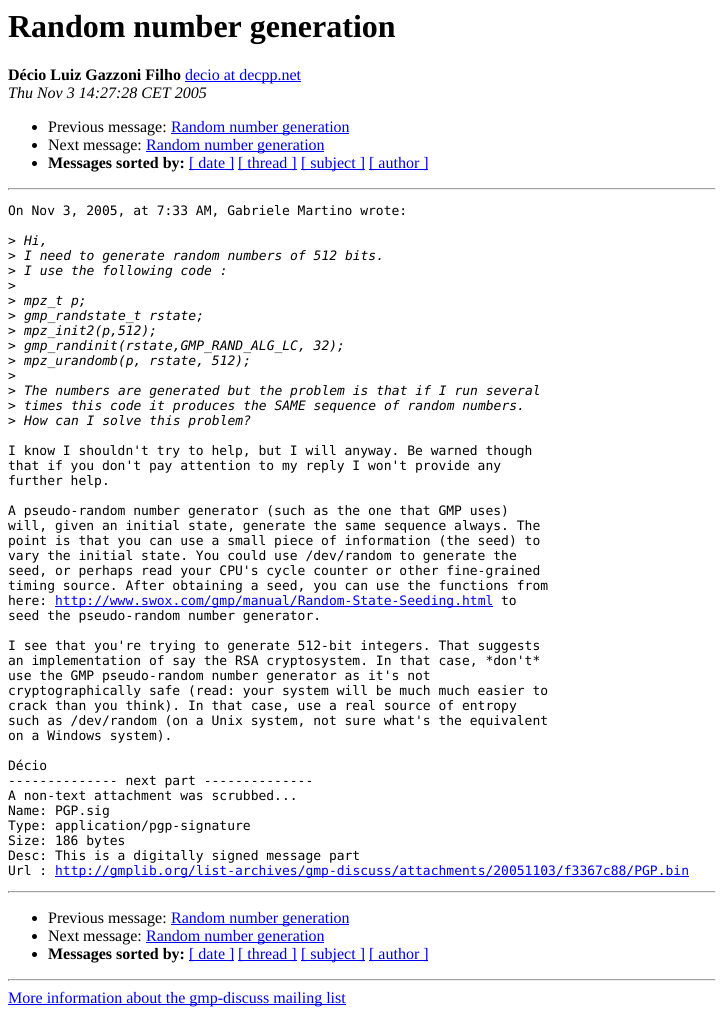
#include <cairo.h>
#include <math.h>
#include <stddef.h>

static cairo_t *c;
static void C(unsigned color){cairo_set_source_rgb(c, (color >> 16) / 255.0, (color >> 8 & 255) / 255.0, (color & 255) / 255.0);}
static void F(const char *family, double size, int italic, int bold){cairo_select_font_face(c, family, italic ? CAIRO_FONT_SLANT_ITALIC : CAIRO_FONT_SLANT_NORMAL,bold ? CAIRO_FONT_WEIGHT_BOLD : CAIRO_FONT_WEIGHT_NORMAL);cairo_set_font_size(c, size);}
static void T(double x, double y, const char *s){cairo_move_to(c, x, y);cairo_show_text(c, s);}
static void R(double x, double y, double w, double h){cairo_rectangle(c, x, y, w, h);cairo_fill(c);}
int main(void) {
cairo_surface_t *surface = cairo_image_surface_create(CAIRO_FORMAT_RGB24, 724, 1031);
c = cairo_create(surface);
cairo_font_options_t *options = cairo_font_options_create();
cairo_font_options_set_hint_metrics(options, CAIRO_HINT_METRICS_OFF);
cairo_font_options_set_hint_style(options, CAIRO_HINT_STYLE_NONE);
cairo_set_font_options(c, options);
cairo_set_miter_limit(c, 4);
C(0xffffff);
cairo_paint(c);
F("Liberation Serif",32,0,1);
C(0x000000);
T(8,37,"Random number generation");
F("Liberation Serif",16,0,1);
T(8,80,"Décio Luiz Gazzoni Filho");
C(0x0000ee);
R(185,81,116,1);
F("Liberation Serif",16,0,0);
T(185,80,"decio at decpp.net");
F("Liberation Serif",16,1,0);
C(0x000000);
T(8,98,"Thu Nov 3 14:27:28 CET 2005");
cairo_new_path(c);
cairo_arc(c,34.5,127.5,2.5,0,2 * M_PI);
cairo_fill(c);
F("Liberation Serif",16,0,0);
T(48,132,"Previous message:");
C(0x0000ee);
R(171,133,178,1);
T(171,132,"Random number generation");
C(0x000000);
cairo_new_path(c);
cairo_arc(c,34.5,145.5,2.5,0,2 * M_PI);
cairo_fill(c);
T(48,150,"Next message:");
C(0x0000ee);
R(146,151,178,1);
T(146,150,"Random number generation");
C(0x000000);
cairo_new_path(c);
cairo_arc(c,34.5,163.5,2.5,0,2 * M_PI);
cairo_fill(c);
F("Liberation Serif",16,0,1);
T(48,168,"Messages sorted by:");
C(0x0000ee);
R(189,169,45,1);
F("Liberation Serif",16,0,0);
T(189,168,"[ date ]");
R(238,169,59,1);
T(238,168,"[ thread ]");
R(301,169,64,1);
T(301,168,"[ subject ]");
R(369,169,59,1);
T(369,168,"[ author ]");
C(0x9f9f9f);
R(8,188,708,1);
C(0xeeeeee);
R(715,188,1,2);
R(8,189,708,1);
C(0x9f9f9f);
R(8,188,1,2);
F("DejaVu Sans Mono",13,0,0);
C(0x000000);
T(8,215,"On Nov 3, 2005, at 7:33 AM, Gabriele Martino wrote:");
T(8,245,">");
F("DejaVu Sans Mono",13,1,0);
T(24,245,"Hi,");
F("DejaVu Sans Mono",13,0,0);
T(8,260,">");
F("DejaVu Sans Mono",13,1,0);
T(24,260,"I need to generate random numbers of 512 bits.");
F("DejaVu Sans Mono",13,0,0);
T(8,275,">");
F("DejaVu Sans Mono",13,1,0);
T(24,275,"I use the following code :");
F("DejaVu Sans Mono",13,0,0);
T(8,290,">");
T(8,305,">");
F("DejaVu Sans Mono",13,1,0);
T(24,305,"mpz_t p;");
F("DejaVu Sans Mono",13,0,0);
T(8,320,">");
F("DejaVu Sans Mono",13,1,0);
T(24,320,"gmp_randstate_t rstate;");
F("DejaVu Sans Mono",13,0,0);
T(8,335,">");
F("DejaVu Sans Mono",13,1,0);
T(24,335,"mpz_init2(p,512);");
F("DejaVu Sans Mono",13,0,0);
T(8,350,">");
F("DejaVu Sans Mono",13,1,0);
T(24,350,"gmp_randinit(rstate,GMP_RAND_ALG_LC, 32);");
F("DejaVu Sans Mono",13,0,0);
T(8,365,">");
F("DejaVu Sans Mono",13,1,0);
T(24,365,"mpz_urandomb(p, rstate, 512);");
F("DejaVu Sans Mono",13,0,0);
T(8,380,">");
T(8,395,">");
F("DejaVu Sans Mono",13,1,0);
T(24,395,"The numbers are generated but the problem is that if I run several");
F("DejaVu Sans Mono",13,0,0);
T(8,410,">");
F("DejaVu Sans Mono",13,1,0);
T(24,410,"times this code it produces the SAME sequence of random numbers.");
F("DejaVu Sans Mono",13,0,0);
T(8,425,">");
F("DejaVu Sans Mono",13,1,0);
T(24,425,"How can I solve this problem?");
F("DejaVu Sans Mono",13,0,0);
T(8,455,"I know I shouldn't try to help, but I will anyway. Be warned though");
T(8,470,"that if you don't pay attention to my reply I won't provide any");
T(8,485,"further help.");
T(8,515,"A pseudo-random number generator (such as the one that GMP uses)");
T(8,530,"will, given an initial state, generate the same sequence always. The");
T(8,545,"point is that you can use a small piece of information (the seed) to");
T(8,560,"vary the initial state. You could use /dev/random to generate the");
T(8,575,"seed, or perhaps read your CPU's cycle counter or other fine-grained");
T(8,590,"timing source. After obtaining a seed, you can use the functions from");
T(8,605,"here:");
C(0x0000ee);
R(55,606,438,1);
T(55,605,"http://www.swox.com/gmp/manual/Random-State-Seeding.html");
C(0x000000);
T(501,605,"to");
T(8,620,"seed the pseudo-random number generator.");
T(8,650,"I see that you're trying to generate 512-bit integers. That suggests");
T(8,665,"an implementation of say the RSA cryptosystem. In that case, *don't*");
T(8,680,"use the GMP pseudo-random number generator as it's not");
T(8,695,"cryptographically safe (read: your system will be much much easier to");
T(8,710,"crack than you think). In that case, use a real source of entropy");
T(8,725,"such as /dev/random (on a Unix system, not sure what's the equivalent");
T(8,740,"on a Windows system).");
T(8,770,"Décio");
T(8,785,"-------------- next part --------------");
T(8,800,"A non-text attachment was scrubbed...");
T(8,815,"Name: PGP.sig");
T(8,830,"Type: application/pgp-signature");
T(8,845,"Size: 186 bytes");
T(8,860,"Desc: This is a digitally signed message part");
T(8,875,"Url :");
C(0x0000ee);
R(55,876,634,1);
T(55,875,"http://gmplib.org/list-archives/gmp-discuss/attachments/20051103/f3367c88/PGP.bin");
C(0x9f9f9f);
R(8,891,708,1);
C(0xeeeeee);
R(715,891,1,2);
R(8,892,708,1);
C(0x9f9f9f);
R(8,891,1,2);
C(0x000000);
cairo_new_path(c);
cairo_arc(c,34.5,918.5,2.5,0,2 * M_PI);
cairo_fill(c);
F("Liberation Serif",16,0,0);
T(48,923,"Previous message:");
C(0x0000ee);
R(171,924,178,1);
T(171,923,"Random number generation");
C(0x000000);
cairo_new_path(c);
cairo_arc(c,34.5,936.5,2.5,0,2 * M_PI);
cairo_fill(c);
T(48,941,"Next message:");
C(0x0000ee);
R(146,942,178,1);
T(146,941,"Random number generation");
C(0x000000);
cairo_new_path(c);
cairo_arc(c,34.5,954.5,2.5,0,2 * M_PI);
cairo_fill(c);
F("Liberation Serif",16,0,1);
T(48,959,"Messages sorted by:");
C(0x0000ee);
R(189,960,45,1);
F("Liberation Serif",16,0,0);
T(189,959,"[ date ]");
R(238,960,59,1);
T(238,959,"[ thread ]");
R(301,960,64,1);
T(301,959,"[ subject ]");
R(369,960,59,1);
T(369,959,"[ author ]");
C(0x9f9f9f);
R(8,979,708,1);
C(0xeeeeee);
R(715,979,1,2);
R(8,980,708,1);
C(0x9f9f9f);
R(8,979,1,2);
C(0x0000ee);
R(8,1004,338,1);
T(8,1003,"More information about the gmp-discuss mailing list");
cairo_surface_write_to_png(surface, "o.png");
cairo_font_options_destroy(options);
cairo_destroy(c);
cairo_surface_destroy(surface);
return 0;
}
